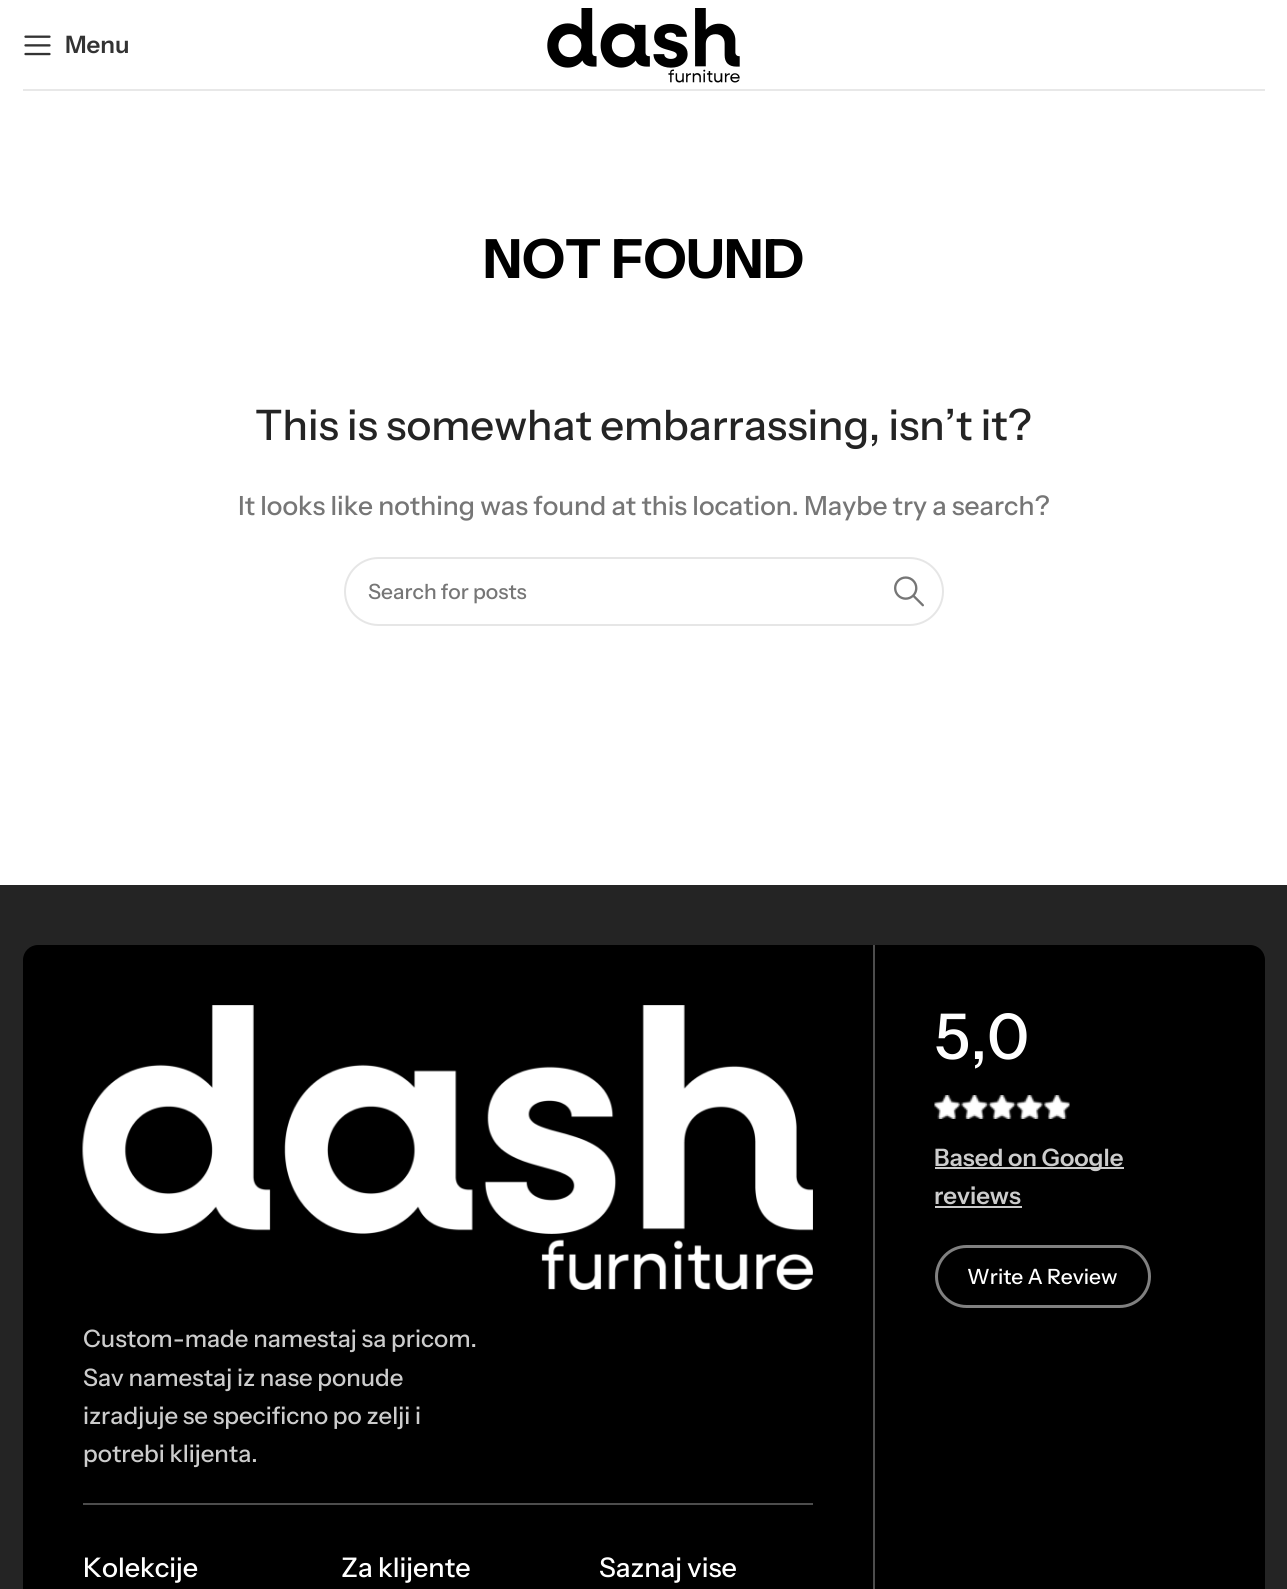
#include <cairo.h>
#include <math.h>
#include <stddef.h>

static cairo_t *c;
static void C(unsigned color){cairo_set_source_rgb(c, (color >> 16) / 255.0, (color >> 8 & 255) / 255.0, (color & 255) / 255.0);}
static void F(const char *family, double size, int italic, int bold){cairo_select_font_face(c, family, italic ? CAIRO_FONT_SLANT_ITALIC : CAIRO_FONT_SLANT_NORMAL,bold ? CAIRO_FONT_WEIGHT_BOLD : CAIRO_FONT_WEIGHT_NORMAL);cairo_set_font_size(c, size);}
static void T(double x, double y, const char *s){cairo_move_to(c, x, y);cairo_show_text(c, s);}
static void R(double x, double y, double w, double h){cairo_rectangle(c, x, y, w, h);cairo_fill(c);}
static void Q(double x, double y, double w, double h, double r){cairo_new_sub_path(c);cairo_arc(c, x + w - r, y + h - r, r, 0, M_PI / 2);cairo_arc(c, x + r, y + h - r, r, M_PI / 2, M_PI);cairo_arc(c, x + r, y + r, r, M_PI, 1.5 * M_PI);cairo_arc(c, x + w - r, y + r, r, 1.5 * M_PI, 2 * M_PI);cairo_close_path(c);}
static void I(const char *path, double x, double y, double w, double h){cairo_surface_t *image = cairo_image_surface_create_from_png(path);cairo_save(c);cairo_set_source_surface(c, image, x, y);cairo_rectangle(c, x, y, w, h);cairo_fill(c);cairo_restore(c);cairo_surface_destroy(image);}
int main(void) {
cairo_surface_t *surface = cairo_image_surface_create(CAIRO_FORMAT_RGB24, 1287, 1589);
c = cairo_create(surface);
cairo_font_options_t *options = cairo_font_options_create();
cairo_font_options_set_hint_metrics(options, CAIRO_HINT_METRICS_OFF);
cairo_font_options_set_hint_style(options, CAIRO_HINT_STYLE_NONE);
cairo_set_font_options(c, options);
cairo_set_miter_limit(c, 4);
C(0xffffff);
cairo_paint(c);
C(0xe8e8e8);
R(23,89,1242,2);
I("1.png",24,35,27,21);
F("Instrument Sans SemiBold",24,0,0);
C(0x333333);
T(65,53,"Menu");
I("2.png",547,8,193,75);
F("Instrument Sans",54,0,1);
C(0x000000);
T(483,278,"NOT FOUND");
F("Instrument Sans Medium",42,0,0);
C(0x242424);
T(255,440,"This is somewhat embarrassing, isn’t it?");
F("Instrument Sans Medium",26.4,0,0);
C(0x767676);
T(238,515,"It looks like nothing was found at this location. Maybe try a search?");
Q(345,558,598,67,33.5);
C(0xe6e6e6);
cairo_stroke(c);
F("Instrument Sans Medium",21,0,0);
C(0x767676);
T(368,599,"Search for posts");
I("3.png",894,576,30,31);
C(0x242424);
R(0,885,1287,704);
C(0x000000);
Q(23,945,1242,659,15);
cairo_fill(c);
C(0x4d4d4d);
R(873,945,2,644);
F("Instrument Sans Medium",63,0,0);
C(0xffffff);
T(934,1059,"5,0");
I("4.png",934,1095,136,24);
C(0xcccccc);
R(935,1167,189,2);
F("Instrument Sans SemiBold",24,0,0);
T(934,1166,"Based on Google");
T(934,1204,"reviews");
R(935,1206,87,2);
Q(936.5,1246.5,213,60,30);
C(0x808080);
cairo_set_line_width(c,3);
cairo_stroke(c);
F("Instrument Sans Medium",21,0,0);
C(0xffffff);
T(967,1284,"Write A Review");
I("5.png",82,1005,731,285);
F("Instrument Sans Medium",24,0,0);
C(0xcccccc);
T(83,1347,"Custom-made namestaj sa pricom.");
T(83,1386,"Sav namestaj iz nase ponude");
T(83,1424,"izradjuje se specificno po zelji i");
T(83,1462,"potrebi klijenta.");
C(0x4d4d4d);
R(83,1503,730,2);
F("Instrument Sans Medium",27,0,0);
C(0xffffff);
T(83,1577,"Kolekcije");
T(341,1577,"Za klijente");
T(599,1577,"Saznaj vise");
cairo_surface_write_to_png(surface, "o.png");
cairo_font_options_destroy(options);
cairo_destroy(c);
cairo_surface_destroy(surface);
return 0;
}
